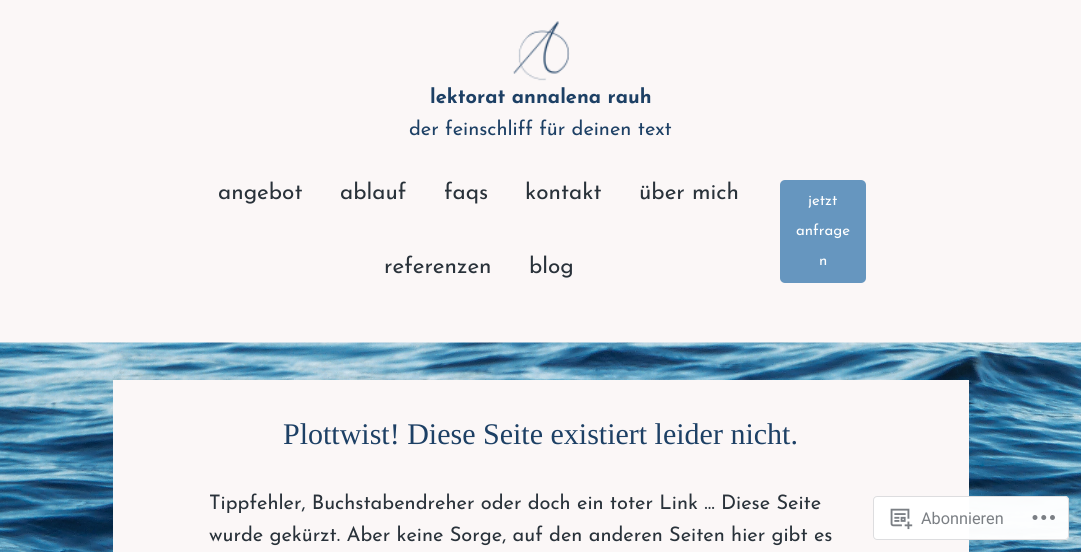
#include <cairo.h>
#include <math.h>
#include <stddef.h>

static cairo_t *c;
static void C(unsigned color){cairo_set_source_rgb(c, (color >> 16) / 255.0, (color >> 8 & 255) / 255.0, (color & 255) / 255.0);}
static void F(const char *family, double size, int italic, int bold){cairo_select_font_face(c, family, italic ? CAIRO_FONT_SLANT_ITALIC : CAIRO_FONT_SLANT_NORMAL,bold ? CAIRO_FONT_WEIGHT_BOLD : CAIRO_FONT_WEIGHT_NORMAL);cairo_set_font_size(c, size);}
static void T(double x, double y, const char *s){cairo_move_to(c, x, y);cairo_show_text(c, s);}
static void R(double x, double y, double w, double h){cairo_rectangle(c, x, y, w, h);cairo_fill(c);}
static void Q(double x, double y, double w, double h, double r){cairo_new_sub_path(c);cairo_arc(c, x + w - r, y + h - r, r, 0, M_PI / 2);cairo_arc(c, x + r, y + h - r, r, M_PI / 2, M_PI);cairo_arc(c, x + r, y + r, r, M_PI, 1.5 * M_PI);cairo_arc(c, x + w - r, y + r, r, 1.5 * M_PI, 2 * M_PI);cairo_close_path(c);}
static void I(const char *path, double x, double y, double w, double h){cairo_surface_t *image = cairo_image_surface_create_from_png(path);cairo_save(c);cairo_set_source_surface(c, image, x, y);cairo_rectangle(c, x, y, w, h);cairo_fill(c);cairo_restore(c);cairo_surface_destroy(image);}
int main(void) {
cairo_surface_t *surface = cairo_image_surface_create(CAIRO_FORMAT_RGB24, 1081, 552);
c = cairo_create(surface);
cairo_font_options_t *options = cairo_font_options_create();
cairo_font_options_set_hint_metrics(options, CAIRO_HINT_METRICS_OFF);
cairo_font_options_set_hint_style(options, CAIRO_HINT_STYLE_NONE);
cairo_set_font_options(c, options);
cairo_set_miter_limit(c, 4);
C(0xfbf7f7);
cairo_paint(c);
I("1.png",513,21,57,60);
F("Josefin Sans",20,0,1);
C(0x1d4065);
T(430,103,"lektorat annalena rauh");
F("Josefin Sans",20,0,0);
T(409,135,"der feinschliff für deinen text");
F("Josefin Sans",22.5,0,0);
C(0x29323a);
T(218,199,"angebot");
T(340,199,"ablauf");
T(444,199,"faqs");
T(525,199,"kontakt");
T(639,199,"über mich");
T(384,273,"referenzen");
T(529,273,"blog");
C(0x6696bf);
Q(780,180,86,103,5);
cairo_fill(c);
F("Josefin Sans",15,0,0);
C(0xffffff);
T(808,205,"jetzt");
T(796,235,"anfrage");
T(819,265,"n");
I("2.png",0,342,1081,210);
C(0xfbf7f7);
R(113,380,856,172);
F("Liberation Serif",30,0,0);
C(0x1d4065);
T(283,444,"Plottwist! Diese Seite existiert leider nicht.");
F("Josefin Sans",20,0,0);
C(0x29323a);
T(209,509,"Tippfehler, Buchstabendreher oder doch ein toter Link … Diese Seite");
T(209,541,"wurde gekürzt. Aber keine Sorge, auf den anderen Seiten hier gibt es");
cairo_set_source_rgba(c,1,1,1,0.98);
Q(873,496,196,44,4);
cairo_fill(c);
Q(873.5,496.5,195,43,3.5);
cairo_set_source_rgba(c,0.863,0.863,0.871,0.98);
cairo_set_line_width(c,1);
cairo_stroke(c);
I("3.png",890,508,23,22);
F("Roboto",16.25,0,0);
C(0x7b7f84);
T(921,524,"Abonnieren");
I("4.png",1032,515,23,5);
cairo_surface_write_to_png(surface, "o.png");
cairo_font_options_destroy(options);
cairo_destroy(c);
cairo_surface_destroy(surface);
return 0;
}
